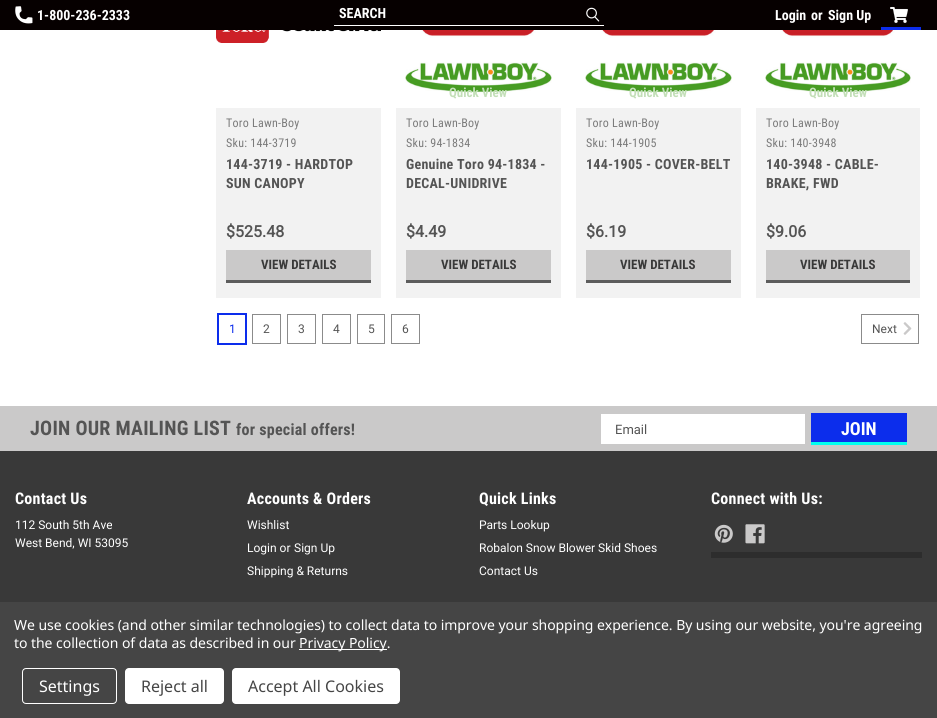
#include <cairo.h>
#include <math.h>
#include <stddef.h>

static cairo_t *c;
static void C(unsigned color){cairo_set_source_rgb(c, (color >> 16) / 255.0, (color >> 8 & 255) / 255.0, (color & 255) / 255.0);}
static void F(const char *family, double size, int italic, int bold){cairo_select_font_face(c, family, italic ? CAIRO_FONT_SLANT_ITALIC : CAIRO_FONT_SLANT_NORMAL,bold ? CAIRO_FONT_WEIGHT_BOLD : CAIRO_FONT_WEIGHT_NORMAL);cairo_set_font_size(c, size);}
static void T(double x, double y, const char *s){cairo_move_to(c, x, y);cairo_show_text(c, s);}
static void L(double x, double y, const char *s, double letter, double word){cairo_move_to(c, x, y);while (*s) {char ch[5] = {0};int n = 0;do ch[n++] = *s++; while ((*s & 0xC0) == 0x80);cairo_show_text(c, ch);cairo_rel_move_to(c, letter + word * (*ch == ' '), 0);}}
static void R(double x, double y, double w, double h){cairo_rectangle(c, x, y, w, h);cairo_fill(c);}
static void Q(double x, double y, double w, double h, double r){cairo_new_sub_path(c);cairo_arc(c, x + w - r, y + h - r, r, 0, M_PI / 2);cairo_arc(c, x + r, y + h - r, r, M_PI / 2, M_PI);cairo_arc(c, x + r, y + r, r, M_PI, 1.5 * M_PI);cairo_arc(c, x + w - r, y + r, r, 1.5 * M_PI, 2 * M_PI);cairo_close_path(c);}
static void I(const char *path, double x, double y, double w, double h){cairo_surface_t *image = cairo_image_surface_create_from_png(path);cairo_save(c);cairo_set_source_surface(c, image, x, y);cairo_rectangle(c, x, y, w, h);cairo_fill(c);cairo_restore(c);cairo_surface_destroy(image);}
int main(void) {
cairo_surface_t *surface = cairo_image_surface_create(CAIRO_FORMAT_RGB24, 937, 718);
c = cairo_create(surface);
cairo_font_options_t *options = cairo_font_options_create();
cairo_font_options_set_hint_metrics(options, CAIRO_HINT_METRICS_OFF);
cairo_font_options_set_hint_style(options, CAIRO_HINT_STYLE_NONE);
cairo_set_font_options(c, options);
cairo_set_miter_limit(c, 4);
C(0xffffff);
cairo_paint(c);
C(0x060000);
R(0,0,937,30);
C(0xffffff);
R(334,25,270,1);
F("Roboto Condensed",14,0,1);
T(339,18,"SEARCH");
I("1.png",586,7,14,15);
I("2.png",15,6,18,18);
T(37,20,"1-800-236-2333");
T(775,20,"Login");
T(811,20,"or");
T(828,20,"Sign Up");
C(0x0c2dec);
R(881,27,40,3);
I("3.png",890,6,18,17);
C(0xf2f2f2);
R(216,108,165,190);
I("4.png",216,30,165,13);
F("Roboto Condensed",12,0,0);
C(0x7b7b7b);
L(226,127,"Toro Lawn-Boy",.25,0);
L(226,147,"Sku: 144-3719",.25,0);
F("Roboto Condensed",14,0,1);
C(0x545454);
L(226,169,"144-3719 - HARDTOP",.25,0);
L(226,188,"SUN CANOPY",.25,0);
F("Roboto",16,0,1);
T(226,237,"$525.48");
C(0xcac9c9);
R(226,250,145,30);
C(0x5c5c5c);
R(226,280,145,3);
F("Roboto Condensed",13,0,1);
C(0x393939);
T(261,269,"VIEW DETAILS");
C(0xf2f2f2);
R(396,108,165,190);
I("5.png",405,30,147,63);
C(0xc3dfb8);
T(449,97,"Quick View");
F("Roboto Condensed",12,0,0);
C(0x7b7b7b);
L(406,127,"Toro Lawn-Boy",.25,0);
L(406,147,"Sku: 94-1834",.25,0);
F("Roboto Condensed",14,0,1);
C(0x545454);
L(406,169,"Genuine Toro 94-1834 -",.25,0);
L(406,188,"DECAL-UNIDRIVE",.25,0);
F("Roboto",16,0,1);
T(406,237,"$4.49");
C(0xcac9c9);
R(406,250,145,30);
C(0x5c5c5c);
R(406,280,145,3);
F("Roboto Condensed",13,0,1);
C(0x393939);
T(441,269,"VIEW DETAILS");
C(0xf2f2f2);
R(576,108,165,190);
I("6.png",585,30,147,63);
C(0xc3dfb8);
T(629,97,"Quick View");
F("Roboto Condensed",12,0,0);
C(0x7b7b7b);
L(586,127,"Toro Lawn-Boy",.25,0);
L(586,147,"Sku: 144-1905",.25,0);
F("Roboto Condensed",14,0,1);
C(0x545454);
L(586,169,"144-1905 - COVER-BELT",.25,0);
F("Roboto",16,0,1);
T(586,237,"$6.19");
C(0xcac9c9);
R(586,250,145,30);
C(0x5c5c5c);
R(586,280,145,3);
F("Roboto Condensed",13,0,1);
C(0x393939);
T(620,269,"VIEW DETAILS");
C(0xf2f2f2);
R(756,108,164,190);
I("7.png",765,30,146,63);
C(0xc3dfb8);
T(809,97,"Quick View");
F("Roboto Condensed",12,0,0);
C(0x7b7b7b);
L(766,127,"Toro Lawn-Boy",.25,0);
L(766,147,"Sku: 140-3948",.25,0);
F("Roboto Condensed",14,0,1);
C(0x545454);
L(766,169,"140-3948 - CABLE-",.25,0);
L(766,188,"BRAKE, FWD",.25,0);
F("Roboto",16,0,1);
T(766,237,"$9.06");
C(0xcac9c9);
R(766,250,144,30);
C(0x5c5c5c);
R(766,280,144,3);
F("Roboto Condensed",13,0,1);
C(0x393939);
T(800,269,"VIEW DETAILS");
cairo_rectangle(c,217.5,313.5,29,31);
C(0x0c2dec);
cairo_set_line_width(c,1);
cairo_stroke(c);
cairo_rectangle(c,218.5,314.5,27,29);
cairo_stroke(c);
F("Roboto",12,0,0);
T(229,333,"1");
cairo_rectangle(c,252.5,314.5,28,29);
C(0x8b8b8b);
cairo_stroke(c);
C(0x545454);
T(263,333,"2");
cairo_rectangle(c,287.5,314.5,28,29);
C(0x8b8b8b);
cairo_stroke(c);
C(0x545454);
T(298,333,"3");
cairo_rectangle(c,322.5,314.5,28,29);
C(0x8b8b8b);
cairo_stroke(c);
C(0x545454);
T(333,333,"4");
cairo_rectangle(c,357.5,314.5,27,29);
C(0x8b8b8b);
cairo_stroke(c);
C(0x545454);
T(368,333,"5");
cairo_rectangle(c,391.5,314.5,28,29);
C(0x8b8b8b);
cairo_stroke(c);
C(0x545454);
T(402,333,"6");
cairo_rectangle(c,861.5,314.5,57,29);
C(0x8b8b8b);
cairo_stroke(c);
C(0x545454);
T(872,333,"Next");
I("8.png",903,322,9,13);
C(0x393939);
R(0,451,937,151);
C(0xcac9c9);
R(0,406,937,45);
F("Roboto Condensed",20,0,1);
C(0x545454);
L(30,435,"JOIN OUR MAILING LIST",.25,0);
F("Roboto Condensed",16,0,1);
L(236,435,"for special offers!",.25,0);
C(0xffffff);
R(601,414,204,30);
F("Roboto",13,0,0);
C(0x545454);
T(615,434,"Email");
C(0x0c2dec);
R(811,413,96,29);
C(0x00ffee);
R(811,442,96,3);
F("Roboto Condensed",18,0,1);
C(0xffffff);
T(841,435,"JOIN");
F("Roboto Condensed",16,0,1);
L(15,504,"Contact Us",.25,0);
F("Roboto",12,0,0);
T(15,529,"112 South 5th Ave");
T(15,547,"West Bend, WI 53095");
F("Roboto Condensed",16,0,1);
L(247,504,"Accounts & Orders",.25,0);
F("Roboto",12,0,0);
T(247,529,"Wishlist");
T(247,552,"Login or");
T(294,552,"Sign Up");
T(247,575,"Shipping & Returns");
F("Roboto Condensed",16,0,1);
L(479,504,"Quick Links",.25,0);
F("Roboto",12,0,0);
T(479,529,"Parts Lookup");
T(479,552,"Robalon Snow Blower Skid Shoes");
T(479,575,"Contact Us");
F("Roboto Condensed",16,0,1);
L(711,504,"Connect with Us:",.25,0);
I("9.png",714,524,19,19);
I("10.png",745,524,20,20);
C(0x2d2d2d);
R(711,552,211,6);
C(0x454545);
R(0,602,937,116);
F("Noto Sans",14,0,0);
C(0xffffff);
L(14,630,"We use cookies (and other similar technologies) to collect data to improve your shopping experience. By using our website, you're agreeing",-.05,0);
L(14,648,"to the collection of data as described in our",-.05,0);
R(299,649,88,1);
L(299,648,"Privacy Policy.",-.05,0);
Q(22.5,668.5,94,35,3.5);
cairo_stroke(c);
F("Noto Sans",16,0,0);
T(39,692,"Settings");
Q(125,668,99,36,4);
cairo_fill(c);
C(0x454545);
T(141,692,"Reject all");
C(0xffffff);
Q(232,668,168,36,4);
cairo_fill(c);
C(0x454545);
T(248,692,"Accept All Cookies");
cairo_surface_write_to_png(surface, "o.png");
cairo_font_options_destroy(options);
cairo_destroy(c);
cairo_surface_destroy(surface);
return 0;
}
